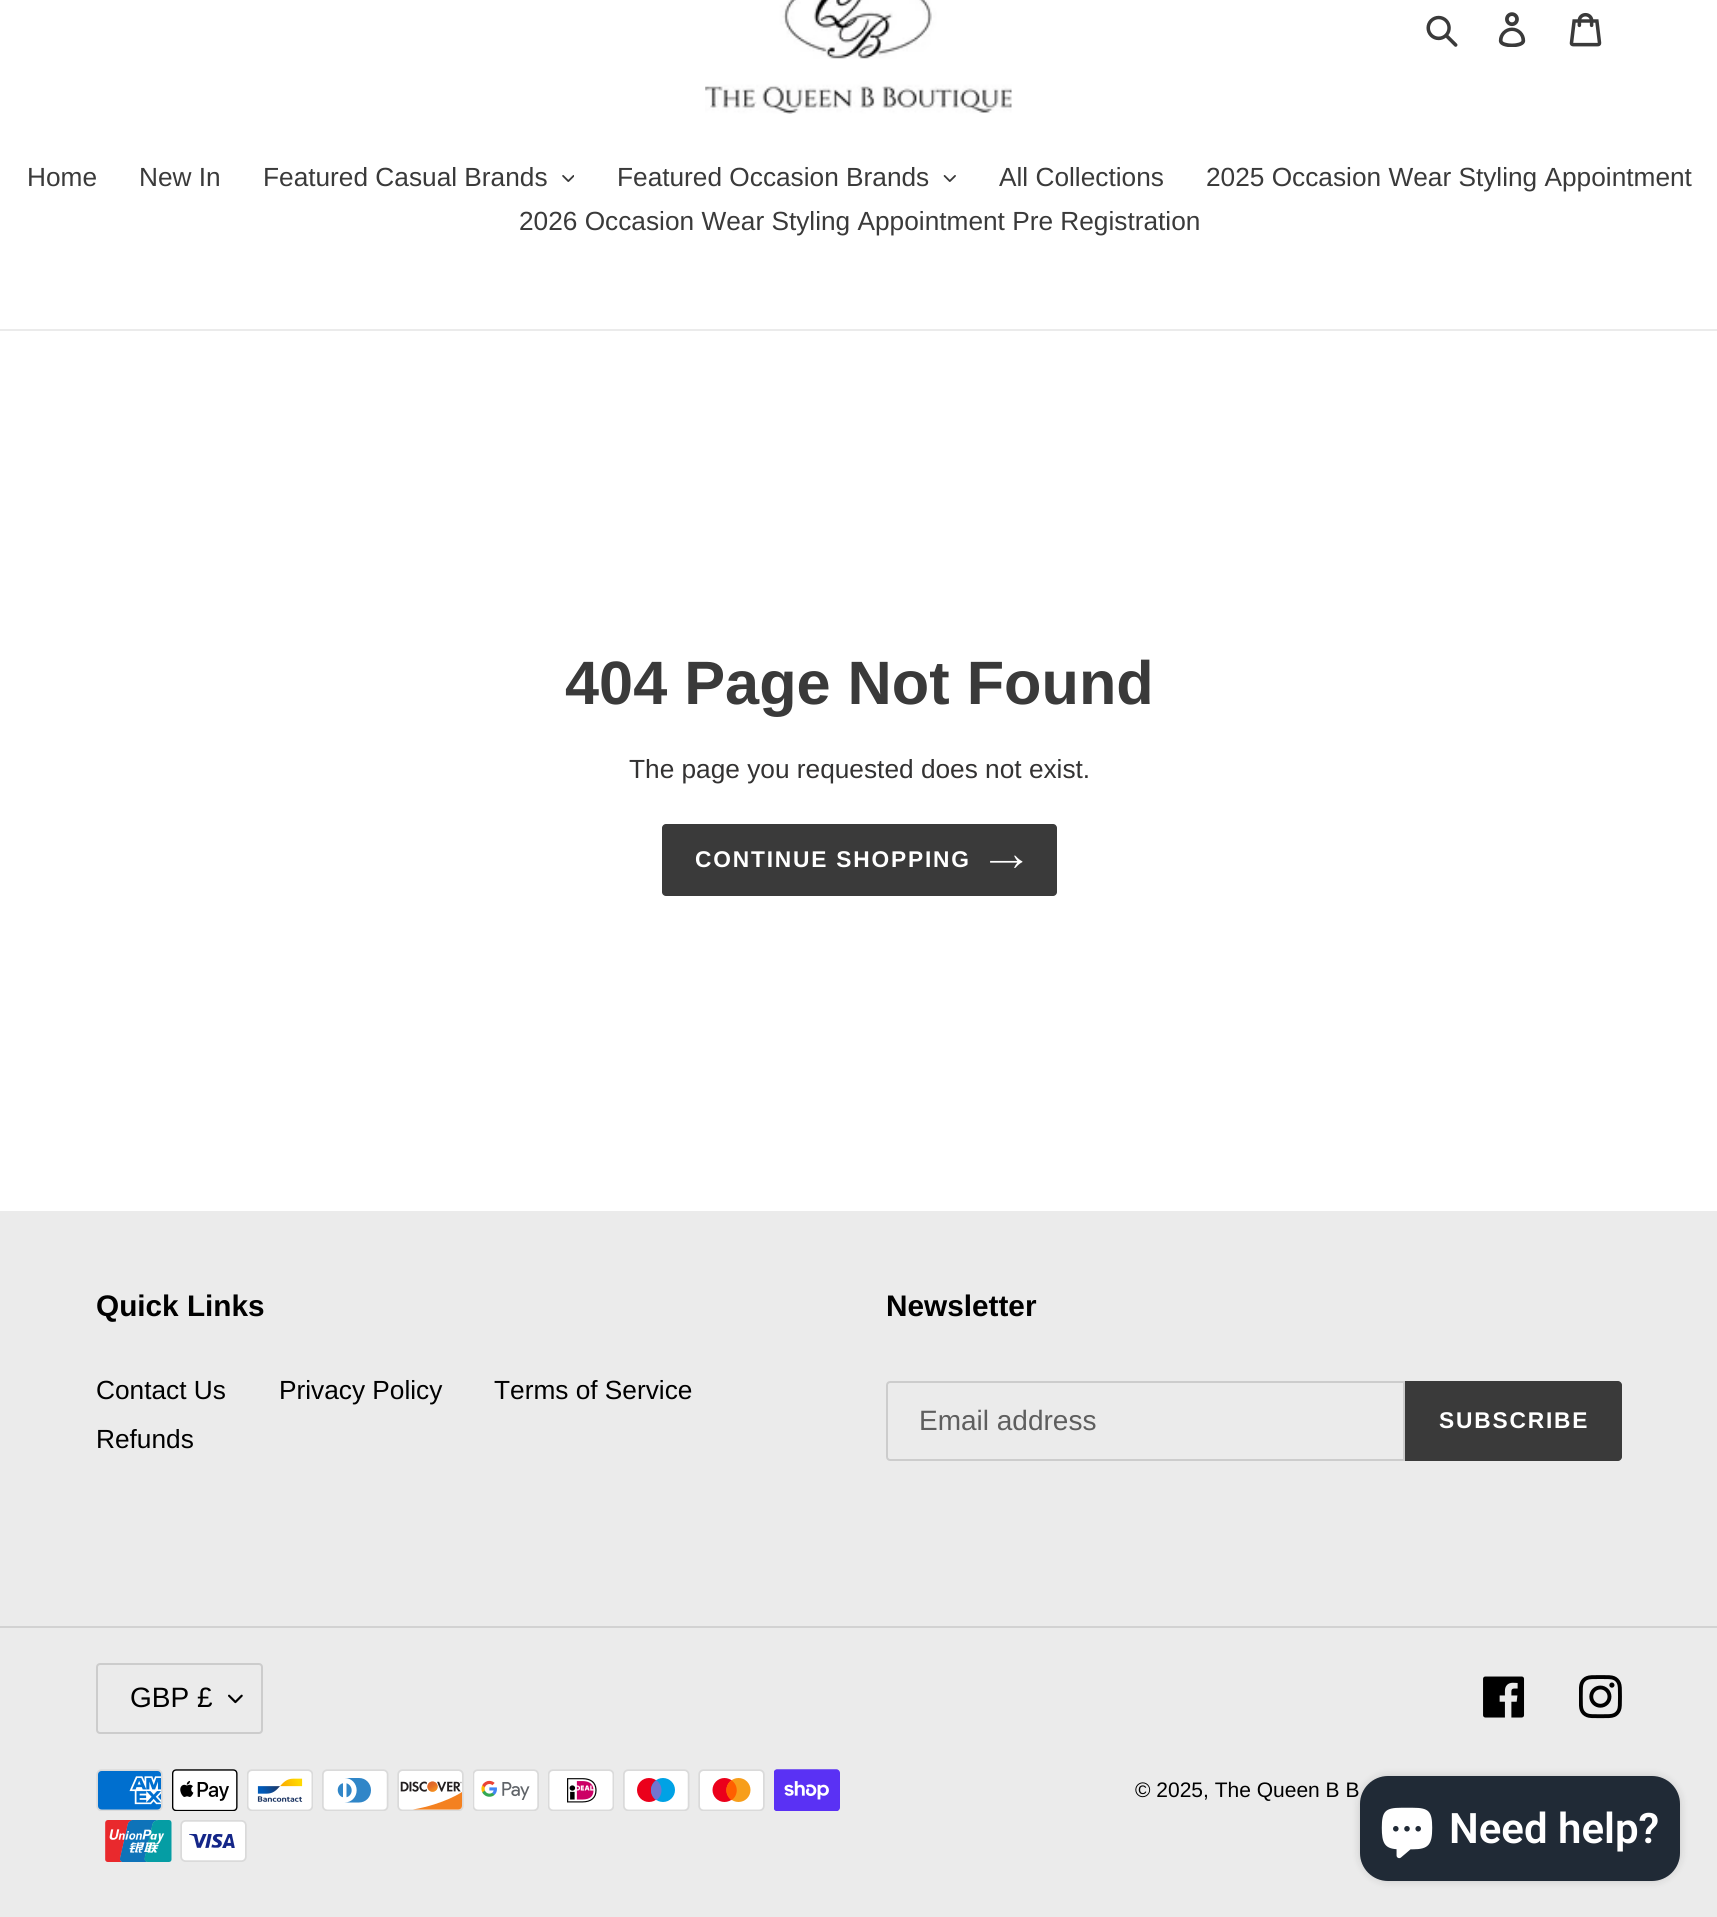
#include <cairo.h>
#include <math.h>
#include <stddef.h>

static cairo_t *c;
static void C(unsigned color){cairo_set_source_rgb(c, (color >> 16) / 255.0, (color >> 8 & 255) / 255.0, (color & 255) / 255.0);}
static void F(const char *family, double size, int italic, int bold){cairo_select_font_face(c, family, italic ? CAIRO_FONT_SLANT_ITALIC : CAIRO_FONT_SLANT_NORMAL,bold ? CAIRO_FONT_WEIGHT_BOLD : CAIRO_FONT_WEIGHT_NORMAL);cairo_set_font_size(c, size);}
static void T(double x, double y, const char *s){cairo_move_to(c, x, y);cairo_show_text(c, s);}
static void L(double x, double y, const char *s, double letter, double word){cairo_move_to(c, x, y);while (*s) {char ch[5] = {0};int n = 0;do ch[n++] = *s++; while ((*s & 0xC0) == 0x80);cairo_show_text(c, ch);cairo_rel_move_to(c, letter + word * (*ch == ' '), 0);}}
static void R(double x, double y, double w, double h){cairo_rectangle(c, x, y, w, h);cairo_fill(c);}
static void Q(double x, double y, double w, double h, double r){cairo_new_sub_path(c);cairo_arc(c, x + w - r, y + h - r, r, 0, M_PI / 2);cairo_arc(c, x + r, y + h - r, r, M_PI / 2, M_PI);cairo_arc(c, x + r, y + r, r, M_PI, 1.5 * M_PI);cairo_arc(c, x + w - r, y + r, r, 1.5 * M_PI, 2 * M_PI);cairo_close_path(c);}
static void S(double x, double y, double w, double h, double r, double blur, double alpha){cairo_push_group_with_content(c, CAIRO_CONTENT_ALPHA);cairo_set_operator(c, CAIRO_OPERATOR_SOURCE);for (int i = 15; i >= -15 && fmin(w, h) + blur * i / 3 > 0; i -= 2) {double e = blur * i / 6;cairo_set_source_rgba(c, 0, 0, 0, alpha * erfc((i - 1) / 8.5) / 2);Q(x - e, y - e, w + 2 * e, h + 2 * e, fmax(0, fmin(r + e + blur * .6, fmin(w, h) / 2 + e)));cairo_fill(c);}cairo_pattern_t *soft = cairo_pop_group(c);cairo_mask(c, soft);cairo_pattern_destroy(soft);}
static void I(const char *path, double x, double y, double w, double h){cairo_surface_t *image = cairo_image_surface_create_from_png(path);cairo_save(c);cairo_set_source_surface(c, image, x, y);cairo_rectangle(c, x, y, w, h);cairo_fill(c);cairo_restore(c);cairo_surface_destroy(image);}
int main(void) {
cairo_surface_t *surface = cairo_image_surface_create(CAIRO_FORMAT_RGB24, 1717, 1917);
c = cairo_create(surface);
cairo_font_options_t *options = cairo_font_options_create();
cairo_font_options_set_hint_metrics(options, CAIRO_HINT_METRICS_OFF);
cairo_font_options_set_hint_style(options, CAIRO_HINT_STYLE_NONE);
cairo_set_font_options(c, options);
cairo_set_miter_limit(c, 4);
C(0xffffff);
cairo_paint(c);
I("1.png",705,0,307,114);
I("2.png",1426,15,32,32);
I("3.png",1498,12,28,35);
I("4.png",1569,12,33,35);
C(0xebebeb);
R(0,329,1717,2);
F("Liberation Sans",26.25,0,0);
C(0x3a3a3a);
T(27,186,"Home");
T(139,186,"New In");
T(263,186,"Featured Casual Brands");
I("5.png",562,175,12,7);
T(617,186,"Featured Occasion Brands");
I("6.png",943,175,13,7);
T(999,186,"All Collections");
T(1206,186,"2025 Occasion Wear Styling Appointment");
T(519,230,"2026 Occasion Wear Styling Appointment Pre Registration");
F("Liberation Sans",61.25,0,1);
T(565,704,"404 Page Not Found");
F("Liberation Sans",26.25,0,0);
C(0x333232);
T(629,778,"The page you requested does not exist.");
C(0x3a3a3a);
Q(662,824,395,72,4);
cairo_fill(c);
F("Liberation Sans",22.75,0,1);
C(0xffffff);
L(695,867,"CONTINUE SHOPPING",1.8,0);
I("7.png",990,855,33,13);
C(0xebebeb);
R(0,1211,1717,706);
F("Liberation Sans",29.75,0,1);
C(0x000000);
T(96,1316,"Quick Links");
F("Liberation Sans",26.25,0,0);
T(96,1399,"Contact Us");
T(279,1399,"Privacy Policy");
T(494,1399,"Terms of Service");
T(96,1448,"Refunds");
F("Liberation Sans",29.75,0,1);
T(886,1316,"Newsletter");
cairo_new_path(c);
cairo_move_to(c,890,1382);
cairo_line_to(c,1404,1382);
cairo_line_to(c,1404,1460);
cairo_line_to(c,890,1460);
cairo_curve_to(c,888.5,1460,887,1458.5,887,1457);
cairo_line_to(c,887,1385);
cairo_curve_to(c,887,1383.5,888.5,1382,890,1382);
cairo_close_path(c);
C(0xcccccc);
cairo_stroke(c);
F("Liberation Sans",28,0,0);
C(0x5e5e5e);
T(919,1430,"Email address");
C(0x3a3a3a);
cairo_new_path(c);
cairo_move_to(c,1405,1381);
cairo_line_to(c,1618,1381);
cairo_curve_to(c,1620,1381,1622,1383,1622,1385);
cairo_line_to(c,1622,1457);
cairo_curve_to(c,1622,1459,1620,1461,1618,1461);
cairo_line_to(c,1405,1461);
cairo_close_path(c);
cairo_fill(c);
F("Liberation Sans",22.75,0,1);
C(0xffffff);
L(1439,1428,"SUBSCRIBE",1.8,0);
C(0xd2d2d2);
R(0,1626,1717,2);
I("8.png",228,1694,15,10);
Q(97,1664,165,69,3);
C(0xcccccc);
cairo_stroke(c);
F("Liberation Sans",28,0,0);
C(0x000000);
T(130,1707,"GBP £");
I("9.png",1483,1676,42,42);
I("10.png",1579,1675,43,44);
I("11.png",96,1769,67,42);
I("12.png",172,1769,66,42);
I("13.png",247,1769,66,42);
I("14.png",322,1769,67,42);
I("15.png",397,1769,67,42);
I("16.png",473,1769,66,42);
I("17.png",548,1769,66,42);
I("18.png",623,1769,67,42);
I("19.png",698,1769,67,42);
I("20.png",774,1769,66,42);
I("21.png",105,1820,67,42);
I("22.png",180,1820,67,42);
F("Liberation Sans",21,0,0);
T(1135,1797,"© 2025, The Queen B B");
C(0x000000);
S(1360,1776,320,105,28,4.5,.15);
C(0x202a36);
Q(1360,1776,320,105,28);
cairo_fill(c);
I("23.png",1381,1807,52,52);
F("Roboto SemiBold",42,0,0);
C(0xffffff);
T(1449,1843,"Need help?");
cairo_surface_write_to_png(surface, "o.png");
cairo_font_options_destroy(options);
cairo_destroy(c);
cairo_surface_destroy(surface);
return 0;
}
